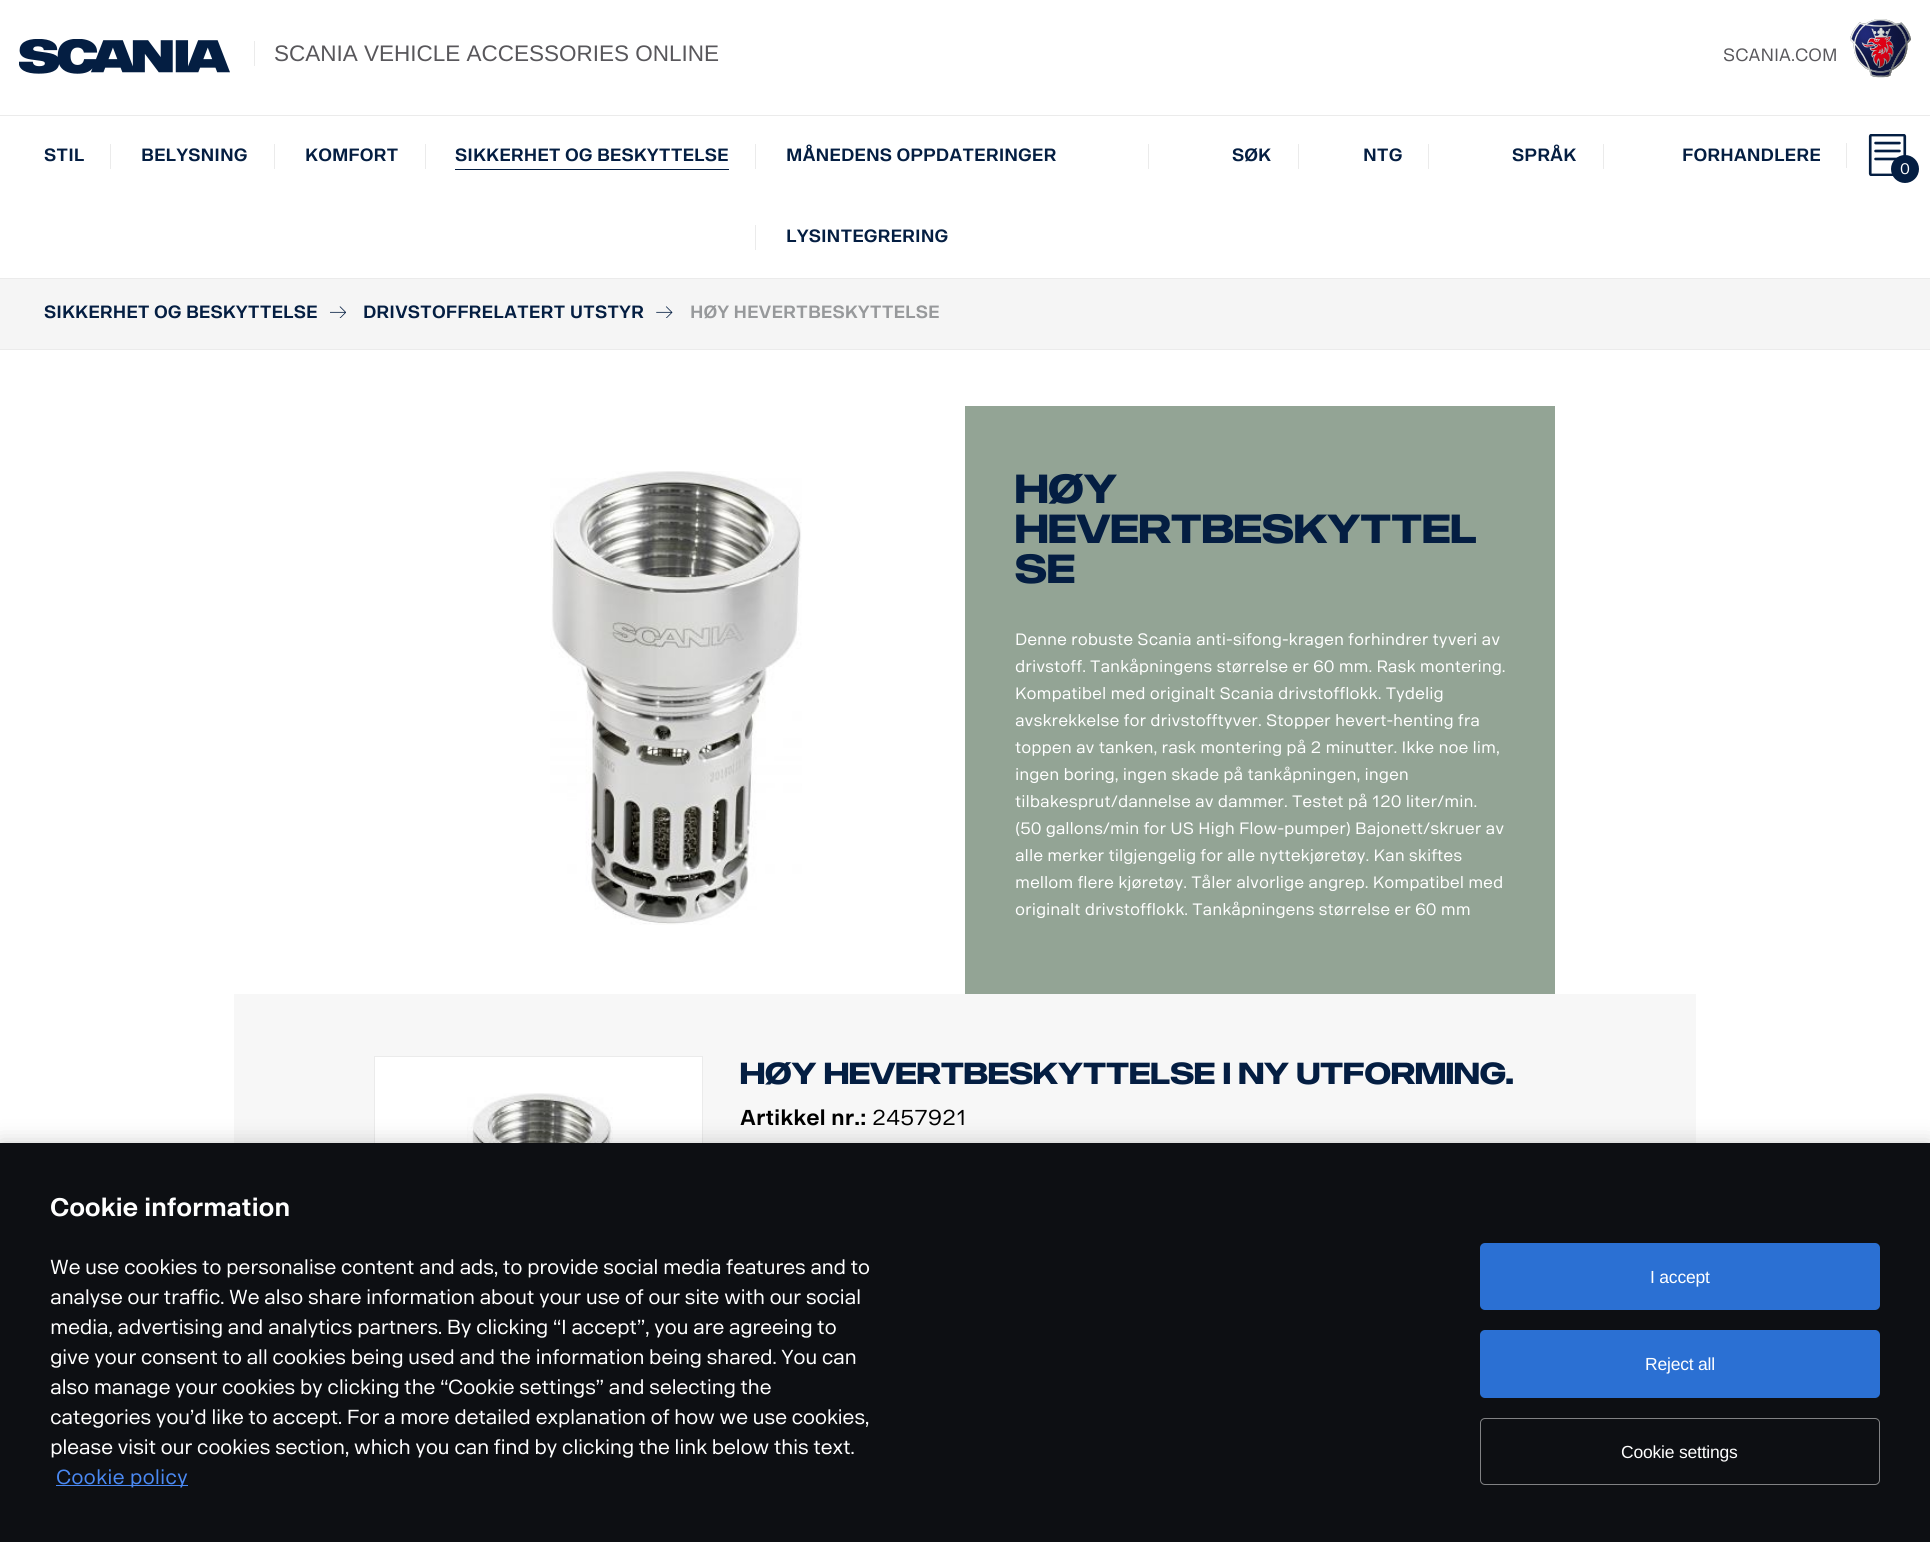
#include <cairo.h>
#include <math.h>
#include <stddef.h>

static cairo_t *c;
static void C(unsigned color){cairo_set_source_rgb(c, (color >> 16) / 255.0, (color >> 8 & 255) / 255.0, (color & 255) / 255.0);}
static void F(const char *family, double size, int italic, int bold){cairo_select_font_face(c, family, italic ? CAIRO_FONT_SLANT_ITALIC : CAIRO_FONT_SLANT_NORMAL,bold ? CAIRO_FONT_WEIGHT_BOLD : CAIRO_FONT_WEIGHT_NORMAL);cairo_set_font_size(c, size);}
static void T(double x, double y, const char *s){cairo_move_to(c, x, y);cairo_show_text(c, s);}
static void L(double x, double y, const char *s, double letter, double word){cairo_move_to(c, x, y);while (*s) {char ch[5] = {0};int n = 0;do ch[n++] = *s++; while ((*s & 0xC0) == 0x80);cairo_show_text(c, ch);cairo_rel_move_to(c, letter + word * (*ch == ' '), 0);}}
static void R(double x, double y, double w, double h){cairo_rectangle(c, x, y, w, h);cairo_fill(c);}
static void Q(double x, double y, double w, double h, double r){cairo_new_sub_path(c);cairo_arc(c, x + w - r, y + h - r, r, 0, M_PI / 2);cairo_arc(c, x + r, y + h - r, r, M_PI / 2, M_PI);cairo_arc(c, x + r, y + r, r, M_PI, 1.5 * M_PI);cairo_arc(c, x + w - r, y + r, r, 1.5 * M_PI, 2 * M_PI);cairo_close_path(c);}
static void S(double x, double y, double w, double h, double r, double blur, double alpha){cairo_push_group_with_content(c, CAIRO_CONTENT_ALPHA);cairo_set_operator(c, CAIRO_OPERATOR_SOURCE);for (int i = 15; i >= -15 && fmin(w, h) + blur * i / 3 > 0; i -= 2) {double e = blur * i / 6;cairo_set_source_rgba(c, 0, 0, 0, alpha * erfc((i - 1) / 8.5) / 2);Q(x - e, y - e, w + 2 * e, h + 2 * e, fmax(0, fmin(r + e + blur * .6, fmin(w, h) / 2 + e)));cairo_fill(c);}cairo_pattern_t *soft = cairo_pop_group(c);cairo_mask(c, soft);cairo_pattern_destroy(soft);}
static void I(const char *path, double x, double y, double w, double h){cairo_surface_t *image = cairo_image_surface_create_from_png(path);cairo_save(c);cairo_set_source_surface(c, image, x, y);cairo_rectangle(c, x, y, w, h);cairo_fill(c);cairo_restore(c);cairo_surface_destroy(image);}
int main(void) {
cairo_surface_t *surface = cairo_image_surface_create(CAIRO_FORMAT_RGB24, 1930, 1542);
c = cairo_create(surface);
cairo_font_options_t *options = cairo_font_options_create();
cairo_font_options_set_hint_metrics(options, CAIRO_HINT_METRICS_OFF);
cairo_font_options_set_hint_style(options, CAIRO_HINT_STYLE_NONE);
cairo_set_font_options(c, options);
cairo_set_miter_limit(c, 4);
C(0xffffff);
cairo_paint(c);
C(0xebebeb);
R(0,115,1930,1);
I("1.png",19,39,211,35);
R(254,41,1,25);
F("Liberation Sans",22.5,0,0);
C(0x58575b);
T(274,61,"SCANIA VEHICLE ACCESSORIES ONLINE");
F("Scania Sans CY",17.5,0,0);
T(1723,61,"SCANIA.COM");
I("2.png",1850,19,61,59);
C(0xebebeb);
R(0,278,1930,1);
F("Scania Sans CY",17.5,0,1);
C(0x041e42);
T(44,161,"STIL");
C(0xebebeb);
R(110,144,1,25);
C(0x041e42);
T(141,161,"BELYSNING");
C(0xebebeb);
R(274,144,1,25);
C(0x041e42);
T(305,161,"KOMFORT");
C(0xebebeb);
R(425,144,1,25);
C(0x041e42);
T(455,161,"SIKKERHET OG BESKYTTELSE");
R(455,169,274,1);
C(0xebebeb);
R(755,144,1,25);
C(0x041e42);
T(786,161,"MÅNEDENS OPPDATERINGER");
C(0xebebeb);
R(755,225,1,25);
C(0x041e42);
T(786,242,"LYSINTEGRERING");
C(0xebebeb);
R(1148,144,1,25);
C(0x041e42);
T(1232,161,"SØK");
C(0xebebeb);
R(1298,144,1,25);
C(0x041e42);
T(1363,161,"NTG");
C(0xebebeb);
R(1428,144,1,25);
C(0x041e42);
T(1512,161,"SPRÅK");
C(0xebebeb);
R(1603,144,1,25);
C(0x041e42);
T(1682,161,"FORHANDLERE");
C(0xebebeb);
R(1846,143,1,25);
I("3.png",1868,134,39,42);
C(0x041e42);
cairo_arc(c,1905,169,12.5,0,2 * M_PI);
cairo_fill_preserve(c);
cairo_set_line_width(c,3);
cairo_stroke(c);
F("Scania Sans CY",15,0,0);
C(0xffffff);
T(1900,174,"0");
C(0xf5f5f5);
R(0,279,1930,70);
C(0xebebeb);
R(0,349,1930,1);
F("Scania Sans CY",17.5,0,1);
C(0x041e42);
T(44,318,"SIKKERHET OG BESKYTTELSE");
I("4.png",330,306,16,12);
T(363,318,"DRIVSTOFFRELATERT UTSTYR");
I("5.png",656,306,17,12);
C(0x97999b);
T(690,318,"HØY HEVERTBESKYTTELSE");
I("6.png",550,471,252,454);
C(0x93a495);
R(965,406,590,588);
F("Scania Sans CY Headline",40,0,1);
C(0x041e42);
T(1015,503,"Høy");
T(1015,543,"hevertbeskyttel");
T(1015,583,"se");
F("Scania Sans CY",16.25,0,0);
C(0xffffff);
T(1015,645,"Denne robuste Scania anti-sifong-kragen forhindrer tyveri av");
T(1015,672,"drivstoff. Tankåpningens størrelse er 60 mm. Rask montering.");
T(1015,699,"Kompatibel med originalt Scania drivstofflokk. Tydelig");
T(1015,726,"avskrekkelse for drivstofftyver. Stopper hevert-henting fra");
T(1015,753,"toppen av tanken, rask montering på 2 minutter. Ikke noe lim,");
T(1015,780,"ingen boring, ingen skade på tankåpningen, ingen");
T(1015,807,"tilbakesprut/dannelse av dammer. Testet på 120 liter/min.");
T(1015,834,"(50 gallons/min for US High Flow-pumper) Bajonett/skruer av");
T(1015,861,"alle merker tilgjengelig for alle nyttekjøretøy. Kan skiftes");
T(1015,888,"mellom flere kjøretøy. Tåler alvorlige angrep. Kompatibel med");
T(1015,915,"originalt drivstofflokk. Tankåpningens størrelse er 60 mm");
C(0xf7f7f7);
R(234,994,1462,149);
C(0xffffff);
R(375,1057,327,86);
cairo_rectangle(c,374.5,1056.5,328,328);
C(0xebebeb);
cairo_set_line_width(c,1);
cairo_stroke(c);
I("7.png",467,1093,146,50);
F("Scania Sans CY Headline",30,0,1);
C(0x041e42);
T(740,1084,"Høy hevertbeskyttelse i ny utforming.");
F("Scania Sans CY",21.25,0,1);
C(0x000000);
T(740,1125,"Artikkel nr.:");
F("Scania Sans CY",21.25,0,0);
T(872,1125,"2457921");
C(0x000000);
S(0,1143,1930,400,0,11,.2);
C(0x0d0f13);
R(0,1143,1930,399);
F("Scania Sans CY",25,0,1);
C(0xffffff);
L(50,1216,"Cookie information",-.25,0);
F("Scania Sans CY",20,0,0);
L(50,1274,"We use cookies to personalise content and ads, to provide social media features and to",-.4,0);
L(50,1304,"analyse our traffic. We also share information about your use of our site with our social",-.4,0);
L(50,1334,"media, advertising and analytics partners. By clicking “I accept”, you are agreeing to",-.4,0);
L(50,1364,"give your consent to all cookies being used and the information being shared. You can",-.4,0);
L(50,1394,"also manage your cookies by clicking the “Cookie settings” and selecting the",-.4,0);
L(50,1424,"categories you’d like to accept. For a more detailed explanation of how we use cookies,",-.4,0);
L(50,1454,"please visit our cookies section, which you can find by clicking the link below this text.",-.4,0);
C(0x4a89f3);
R(56,1485,132,1);
T(56,1484,"Cookie policy");
C(0x2b70d3);
Q(1480,1243,400,67,5);
cairo_fill(c);
F("Liberation Sans",17.5,0,0);
C(0xffffff);
L(1650,1283,"I accept",-.2,0);
C(0x2b70d3);
Q(1480,1330,400,68,5);
cairo_fill(c);
C(0xffffff);
L(1645,1370,"Reject all",-.2,0);
Q(1480.5,1418.5,399,66,4.5);
C(0x818284);
cairo_stroke(c);
C(0xffffff);
L(1621,1458,"Cookie settings",-.2,0);
cairo_surface_write_to_png(surface, "o.png");
cairo_font_options_destroy(options);
cairo_destroy(c);
cairo_surface_destroy(surface);
return 0;
}
